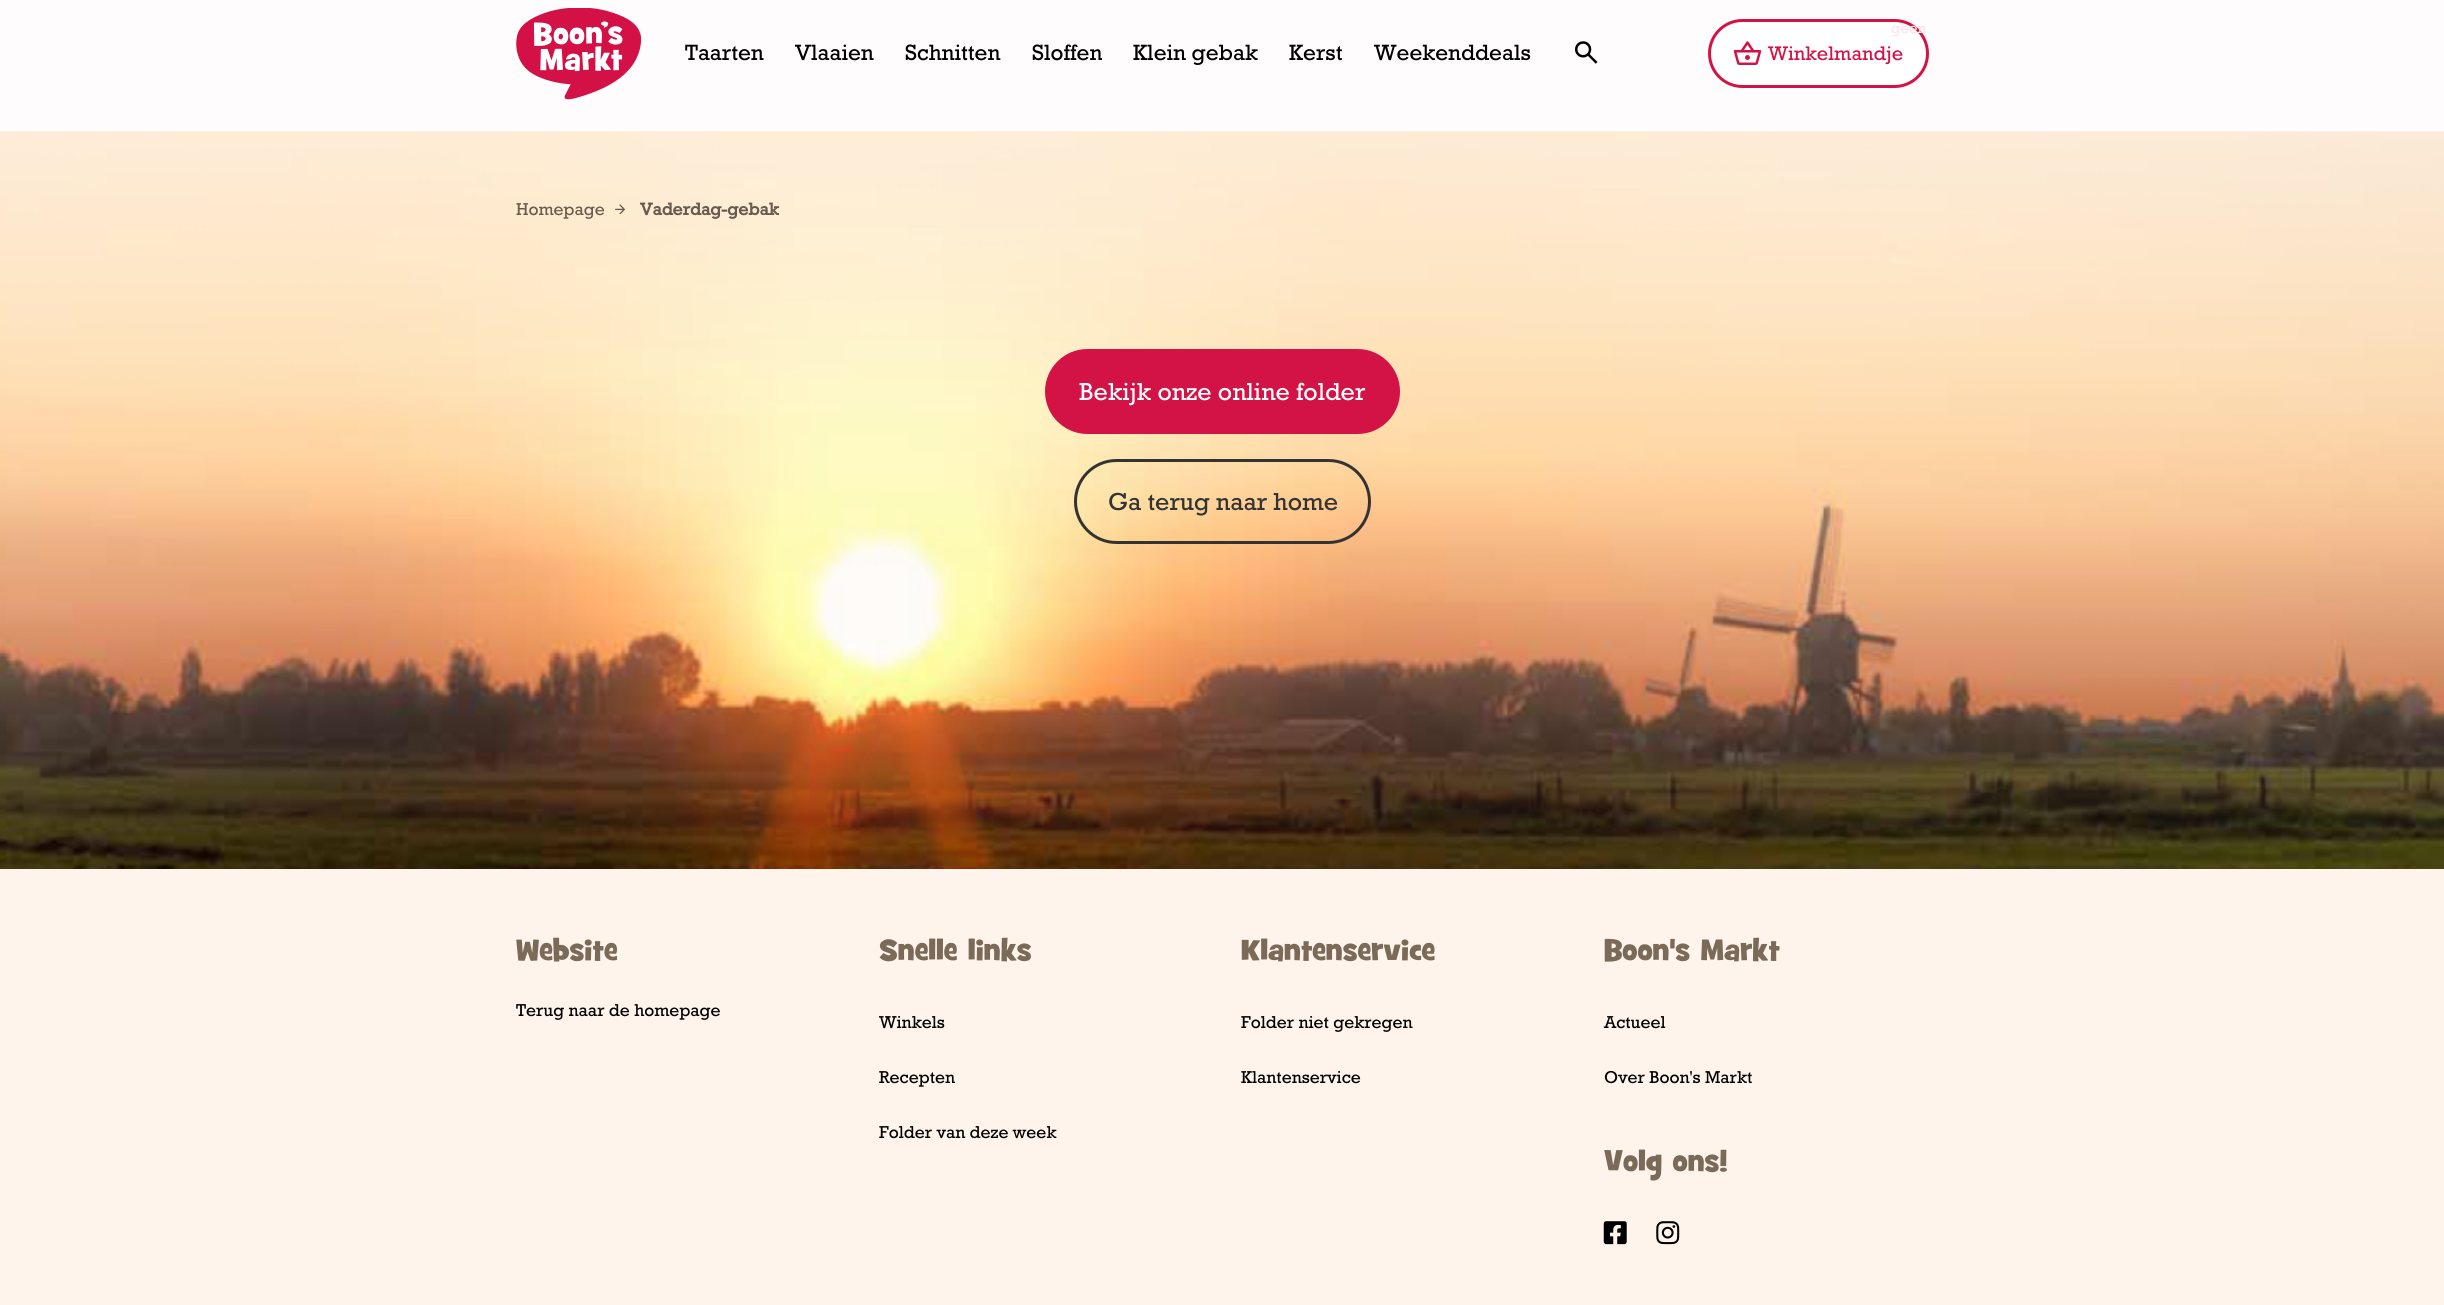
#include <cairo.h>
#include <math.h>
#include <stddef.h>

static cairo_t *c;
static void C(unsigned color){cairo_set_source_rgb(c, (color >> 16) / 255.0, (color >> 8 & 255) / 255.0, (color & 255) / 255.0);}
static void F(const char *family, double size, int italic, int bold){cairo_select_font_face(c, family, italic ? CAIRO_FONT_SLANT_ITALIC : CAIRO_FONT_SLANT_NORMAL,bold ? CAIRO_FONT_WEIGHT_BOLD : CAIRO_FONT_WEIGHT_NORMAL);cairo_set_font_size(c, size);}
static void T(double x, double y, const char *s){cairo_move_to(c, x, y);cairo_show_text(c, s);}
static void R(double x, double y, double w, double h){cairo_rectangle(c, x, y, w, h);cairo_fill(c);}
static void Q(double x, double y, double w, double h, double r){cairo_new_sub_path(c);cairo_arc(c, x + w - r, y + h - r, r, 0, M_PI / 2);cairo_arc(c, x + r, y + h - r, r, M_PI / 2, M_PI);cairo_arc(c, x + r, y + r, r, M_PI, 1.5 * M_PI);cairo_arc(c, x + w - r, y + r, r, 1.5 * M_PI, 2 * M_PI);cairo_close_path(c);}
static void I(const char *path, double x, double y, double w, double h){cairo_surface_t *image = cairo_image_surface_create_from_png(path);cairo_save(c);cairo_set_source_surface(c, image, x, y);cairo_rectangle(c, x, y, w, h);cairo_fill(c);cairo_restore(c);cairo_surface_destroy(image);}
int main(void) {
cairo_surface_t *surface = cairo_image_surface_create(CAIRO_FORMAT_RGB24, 2444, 1305);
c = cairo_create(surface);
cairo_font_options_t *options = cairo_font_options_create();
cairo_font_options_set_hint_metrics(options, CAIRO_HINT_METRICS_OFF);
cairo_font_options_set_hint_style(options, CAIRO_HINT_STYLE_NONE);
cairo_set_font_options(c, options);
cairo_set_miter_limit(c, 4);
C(0xfefcfc);
cairo_paint(c);
I("1.png",516,8,125,92);
F("Rockwell",22.5,0,0);
C(0x000000);
T(685,60,"Taarten");
T(795,60,"Vlaaien");
T(905,60,"Schnitten");
T(1032,60,"Sloffen");
T(1133,60,"Klein gebak");
T(1289,60,"Kerst");
T(1374,60,"Weekenddeals");
I("2.png",1575,41,23,23);
C(0xffffff);
Q(1709.5,20.5,218,66,33);
cairo_fill_preserve(c);
C(0xd31245);
cairo_set_line_width(c,3);
cairo_stroke(c);
F("Rockwell",15,0,0);
C(0xfae3e9);
T(1891,33,"geen");
I("3.png",1733,41,29,24);
F("Rockwell",20,0,0);
C(0xd31245);
T(1768,60,"Winkelmandje");
C(0xfdf2e9);
R(0,131,2444,1);
I("4.png",0,131,2444,738);
F("Rockwell",17.5,0,0);
C(0x675b4f);
T(516,215,"Homepage");
I("5.png",615,204,10,10);
F("Rockwell",17.5,0,1);
T(640,215,"Vaderdag-gebak");
C(0xd31245);
Q(1046.5,350.5,352,82,41);
cairo_fill_preserve(c);
cairo_stroke(c);
F("Rockwell",25,0,0);
C(0xffffff);
T(1079,400,"Bekijk onze online folder");
Q(1075.5,460.5,294,82,41);
C(0x333333);
cairo_stroke(c);
T(1108,510,"Ga terug naar home");
C(0xfef4ec);
R(0,869,2444,436);
F("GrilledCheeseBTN",30,0,0);
C(0x7b6a58);
T(516,960,"Website");
F("Rockwell",17.5,0,0);
C(0x000000);
T(516,1016,"Terug naar de homepage");
F("GrilledCheeseBTN",30,0,0);
C(0x7b6a58);
T(879,960,"Snelle links");
F("Rockwell",17.5,0,0);
C(0x000000);
T(879,1028,"Winkels");
T(879,1083,"Recepten");
T(879,1138,"Folder van deze week");
F("GrilledCheeseBTN",30,0,0);
C(0x7b6a58);
T(1241,960,"Klantenservice");
F("Rockwell",17.5,0,0);
C(0x000000);
T(1241,1028,"Folder niet gekregen");
T(1241,1083,"Klantenservice");
F("GrilledCheeseBTN",30,0,0);
C(0x7b6a58);
T(1604,960,"Boon's Markt");
F("Rockwell",17.5,0,0);
C(0x000000);
T(1604,1028,"Actueel");
T(1604,1083,"Over Boon's Markt");
F("GrilledCheeseBTN",30,0,0);
C(0x7b6a58);
T(1604,1171,"Volg ons!");
I("6.png",1603,1221,24,24);
I("7.png",1656,1221,24,24);
cairo_surface_write_to_png(surface, "o.png");
cairo_font_options_destroy(options);
cairo_destroy(c);
cairo_surface_destroy(surface);
return 0;
}
